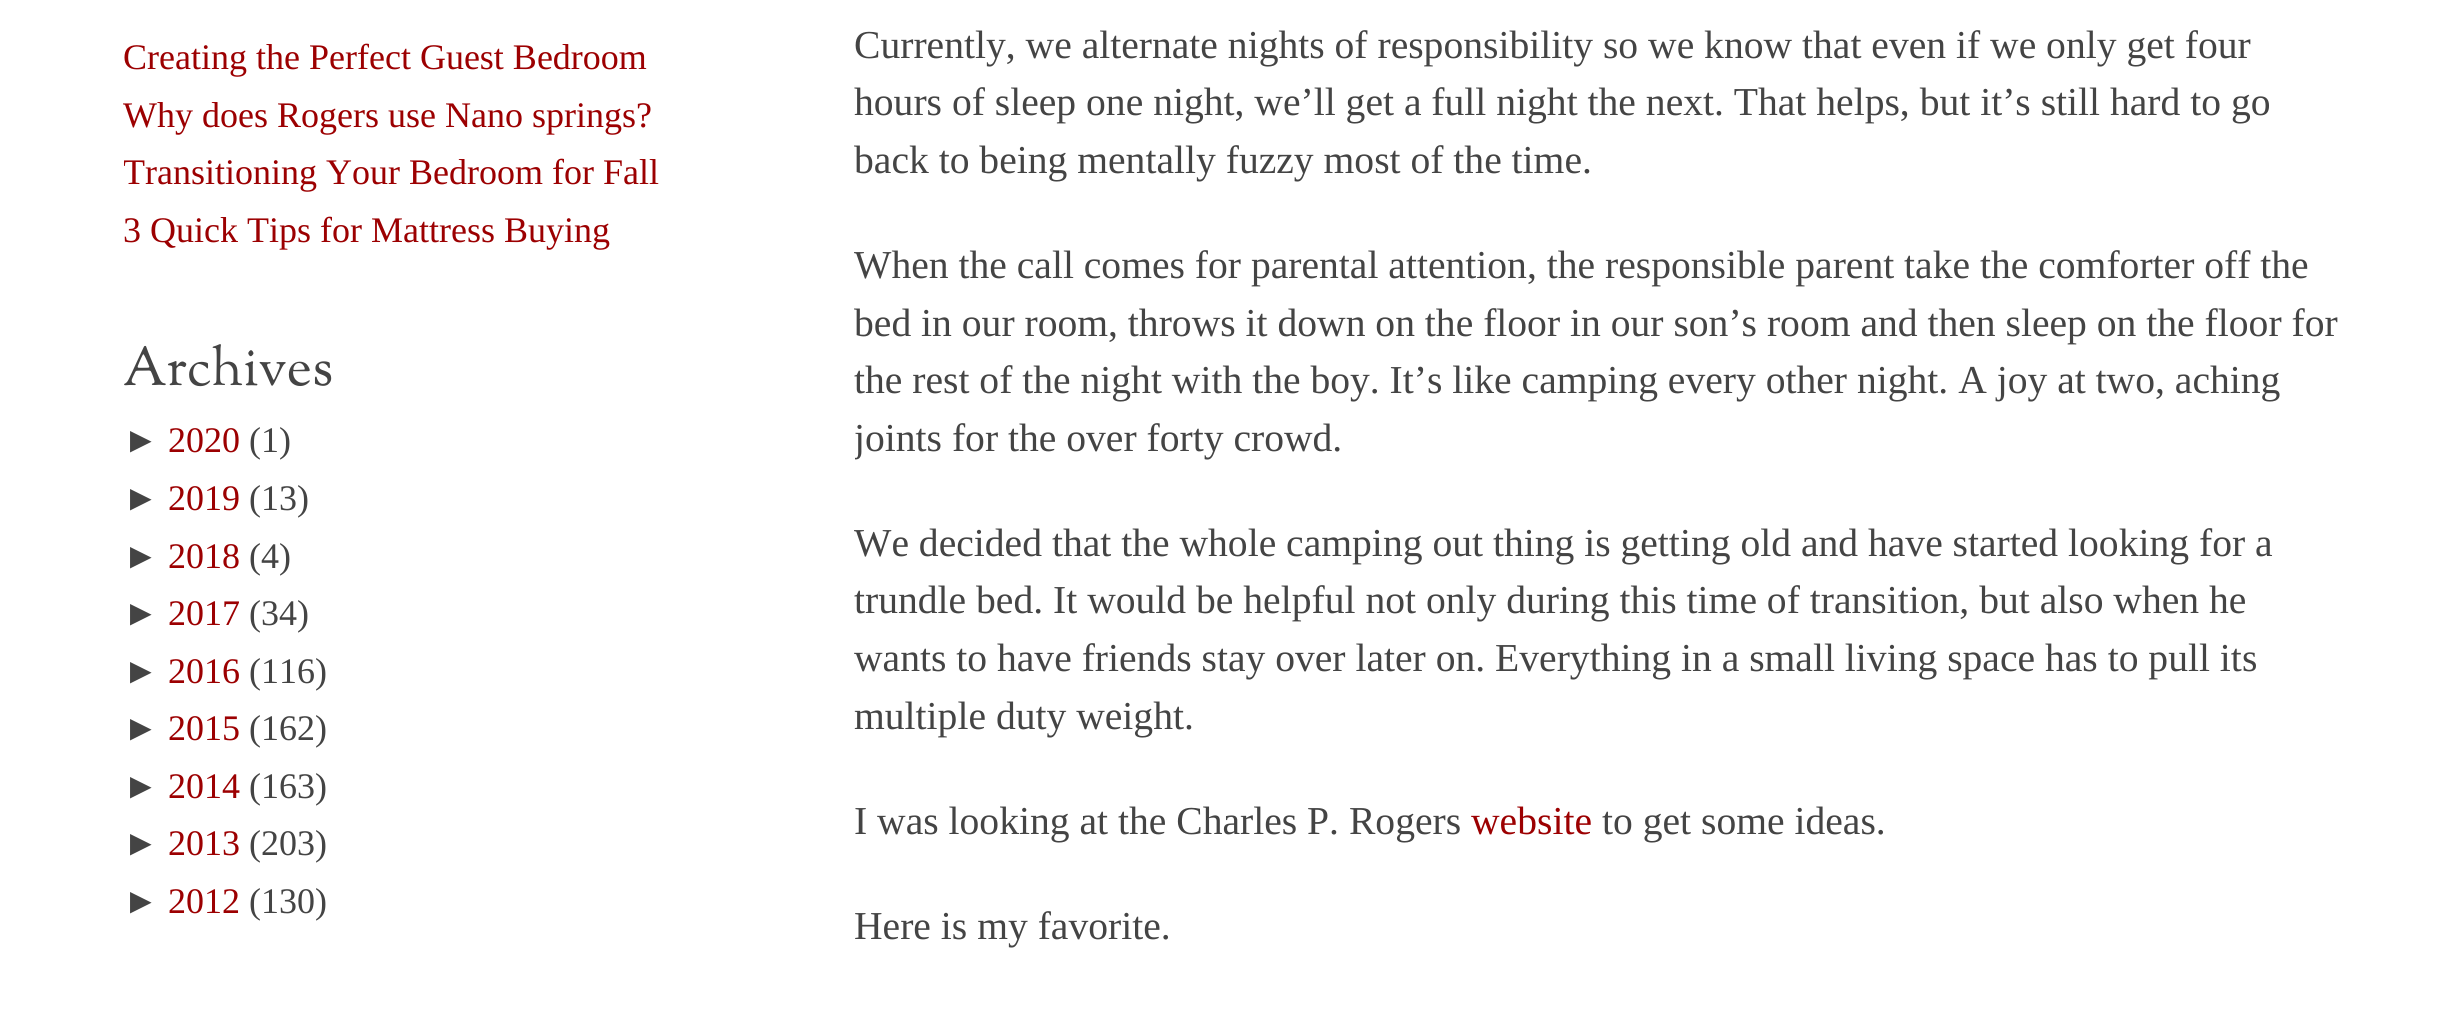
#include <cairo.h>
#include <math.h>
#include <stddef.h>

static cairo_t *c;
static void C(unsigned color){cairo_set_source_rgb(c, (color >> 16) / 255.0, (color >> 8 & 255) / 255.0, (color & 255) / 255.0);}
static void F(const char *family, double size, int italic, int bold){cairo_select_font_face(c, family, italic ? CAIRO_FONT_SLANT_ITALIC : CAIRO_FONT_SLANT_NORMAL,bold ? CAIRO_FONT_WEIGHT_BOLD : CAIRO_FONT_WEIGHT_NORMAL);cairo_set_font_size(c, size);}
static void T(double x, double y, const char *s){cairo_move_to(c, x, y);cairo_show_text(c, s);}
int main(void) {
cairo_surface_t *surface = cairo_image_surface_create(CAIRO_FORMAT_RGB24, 2460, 1033);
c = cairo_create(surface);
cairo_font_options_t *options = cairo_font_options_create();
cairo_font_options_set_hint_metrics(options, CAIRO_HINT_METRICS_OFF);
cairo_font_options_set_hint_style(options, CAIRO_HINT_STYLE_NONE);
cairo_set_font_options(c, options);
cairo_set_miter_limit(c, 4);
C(0xffffff);
cairo_paint(c);
F("Liberation Serif",36,0,0);
C(0x9c0001);
T(123,69,"Creating the Perfect Guest Bedroom");
T(123,127,"Why does Rogers use Nano springs?");
cairo_save(c);
cairo_rectangle(c,124,0,2214,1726);
cairo_clip(c);
T(123,184,"Transitioning Your Bedroom for Fall");
cairo_restore(c);
T(123,242,"3 Quick Tips for Mattress Buying");
F("OFL Sorts Mill Goudy TT Medium",54,0,0);
C(0x444444);
T(123,385,"Archives");
F("Liberation Serif",36,0,0);
T(123,452,"►");
C(0x9c0001);
T(168,452,"2020");
C(0x444444);
T(249,452,"(1)");
T(123,510,"►");
C(0x9c0001);
T(168,510,"2019");
C(0x444444);
T(249,510,"(13)");
T(123,568,"►");
C(0x9c0001);
T(168,568,"2018");
C(0x444444);
T(249,568,"(4)");
T(123,625,"►");
C(0x9c0001);
T(168,625,"2017");
C(0x444444);
T(249,625,"(34)");
T(123,683,"►");
C(0x9c0001);
T(168,683,"2016");
C(0x444444);
T(249,683,"(116)");
T(123,740,"►");
C(0x9c0001);
T(168,740,"2015");
C(0x444444);
T(249,740,"(162)");
T(123,798,"►");
C(0x9c0001);
T(168,798,"2014");
C(0x444444);
T(249,798,"(163)");
T(123,855,"►");
C(0x9c0001);
T(168,855,"2013");
C(0x444444);
T(249,855,"(203)");
T(123,913,"►");
C(0x9c0001);
T(168,913,"2012");
C(0x444444);
T(249,913,"(130)");
F("Liberation Serif",39.6,0,0);
T(854,58,"Currently, we alternate nights of responsibility so we know that even if we only get four");
T(854,115,"hours of sleep one night, we’ll get a full night the next. That helps, but it’s still hard to go");
T(854,173,"back to being mentally fuzzy most of the time.");
T(854,278,"When the call comes for parental attention, the responsible parent take the comforter off the");
T(854,336,"bed in our room, throws it down on the floor in our son’s room and then sleep on the floor for");
T(854,393,"the rest of the night with the boy. It’s like camping every other night. A joy at two, aching");
cairo_save(c);
cairo_rectangle(c,855,0,1483,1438);
cairo_clip(c);
T(854,451,"joints for the over forty crowd.");
cairo_restore(c);
T(854,556,"We decided that the whole camping out thing is getting old and have started looking for a");
T(854,613,"trundle bed. It would be helpful not only during this time of transition, but also when he");
T(854,671,"wants to have friends stay over later on. Everything in a small living space has to pull its");
T(854,729,"multiple duty weight.");
T(854,834,"I was looking at the Charles P. Rogers");
C(0x9c0001);
T(1471,834,"website");
C(0x444444);
T(1602,834,"to get some ideas.");
T(854,939,"Here is my favorite.");
cairo_surface_write_to_png(surface, "o.png");
cairo_font_options_destroy(options);
cairo_destroy(c);
cairo_surface_destroy(surface);
return 0;
}
